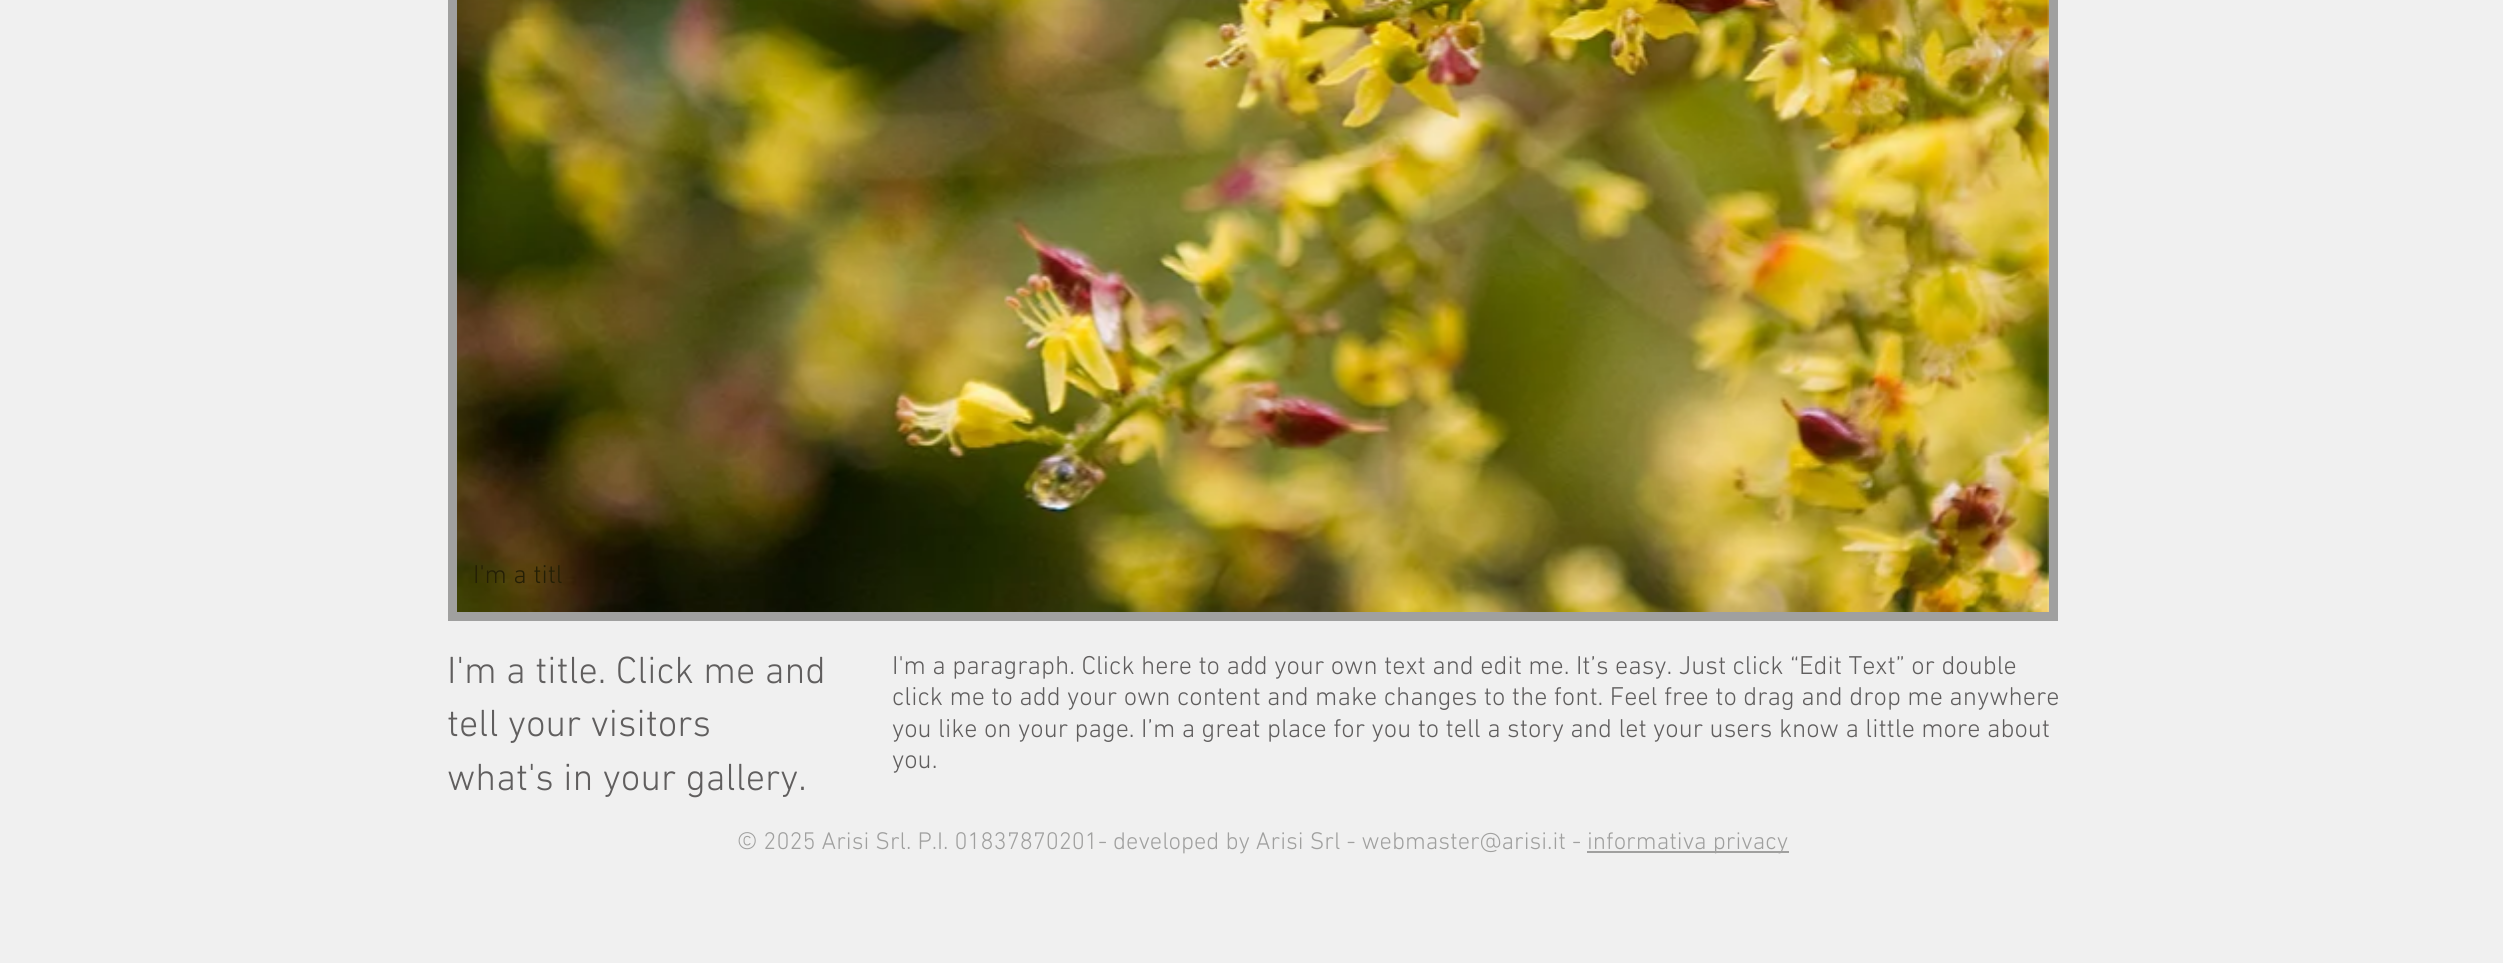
#include <cairo.h>
#include <math.h>
#include <stddef.h>

static cairo_t *c;
static void C(unsigned color){cairo_set_source_rgb(c, (color >> 16) / 255.0, (color >> 8 & 255) / 255.0, (color & 255) / 255.0);}
static void F(const char *family, double size, int italic, int bold){cairo_select_font_face(c, family, italic ? CAIRO_FONT_SLANT_ITALIC : CAIRO_FONT_SLANT_NORMAL,bold ? CAIRO_FONT_WEIGHT_BOLD : CAIRO_FONT_WEIGHT_NORMAL);cairo_set_font_size(c, size);}
static void T(double x, double y, const char *s){cairo_move_to(c, x, y);cairo_show_text(c, s);}
static void R(double x, double y, double w, double h){cairo_rectangle(c, x, y, w, h);cairo_fill(c);}
static void I(const char *path, double x, double y, double w, double h){cairo_surface_t *image = cairo_image_surface_create_from_png(path);cairo_save(c);cairo_set_source_surface(c, image, x, y);cairo_rectangle(c, x, y, w, h);cairo_fill(c);cairo_restore(c);cairo_surface_destroy(image);}
int main(void) {
cairo_surface_t *surface = cairo_image_surface_create(CAIRO_FORMAT_RGB24, 2503, 963);
c = cairo_create(surface);
cairo_font_options_t *options = cairo_font_options_create();
cairo_font_options_set_hint_metrics(options, CAIRO_HINT_METRICS_OFF);
cairo_font_options_set_hint_style(options, CAIRO_HINT_STYLE_NONE);
cairo_set_font_options(c, options);
cairo_set_miter_limit(c, 4);
C(0xf0f0f0);
cairo_paint(c);
I("1.png",457,0,1592,612);
cairo_rectangle(c,452.5,-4.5,1601,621);
C(0xa0a09f);
cairo_set_line_width(c,9);
cairo_stroke(c);
F("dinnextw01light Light",26.25,0,0);
C(0x241f05);
T(473,583,"I'm a titl");
F("dinnextw01light Light",38.5,0,0);
C(0x605e5e);
T(447,683,"I'm a title. Click me and");
T(447,736,"tell your visitors");
T(447,790,"what's in your gallery.");
F("dinnextw01light Light",26.25,0,0);
T(892,674,"I'm a paragraph. Click here to add your own text and edit me. It’s easy. Just click “Edit Text” or double");
T(892,705,"click me to add your own content and make changes to the font. Feel free to drag and drop me anywhere");
T(892,737,"you like on your page. I’m a great place for you to tell a story and let your users know a little more about");
T(892,768,"you.");
F("dinnextw01light Light",24.5,0,0);
C(0xa0a09f);
T(737,849,"© 2025 Arisi Srl. P.I. 01837870201- developed by Arisi Srl - webmaster@arisi.it -");
R(1587,851,202,2);
T(1587,849,"informativa privacy");
cairo_surface_write_to_png(surface, "o.png");
cairo_font_options_destroy(options);
cairo_destroy(c);
cairo_surface_destroy(surface);
return 0;
}
